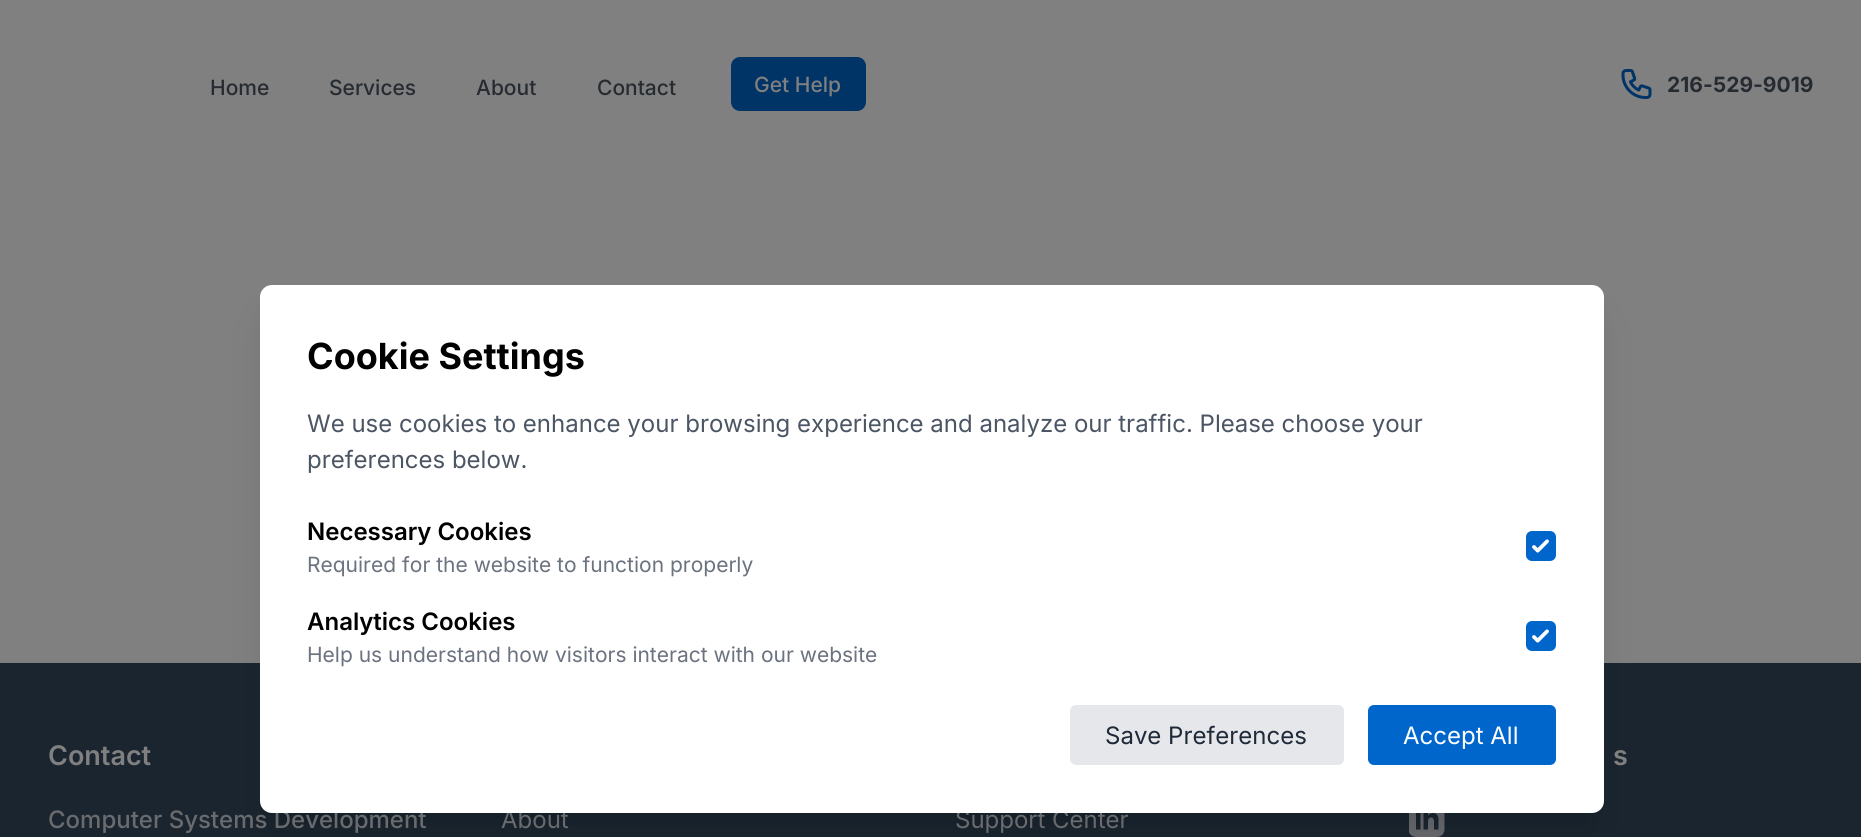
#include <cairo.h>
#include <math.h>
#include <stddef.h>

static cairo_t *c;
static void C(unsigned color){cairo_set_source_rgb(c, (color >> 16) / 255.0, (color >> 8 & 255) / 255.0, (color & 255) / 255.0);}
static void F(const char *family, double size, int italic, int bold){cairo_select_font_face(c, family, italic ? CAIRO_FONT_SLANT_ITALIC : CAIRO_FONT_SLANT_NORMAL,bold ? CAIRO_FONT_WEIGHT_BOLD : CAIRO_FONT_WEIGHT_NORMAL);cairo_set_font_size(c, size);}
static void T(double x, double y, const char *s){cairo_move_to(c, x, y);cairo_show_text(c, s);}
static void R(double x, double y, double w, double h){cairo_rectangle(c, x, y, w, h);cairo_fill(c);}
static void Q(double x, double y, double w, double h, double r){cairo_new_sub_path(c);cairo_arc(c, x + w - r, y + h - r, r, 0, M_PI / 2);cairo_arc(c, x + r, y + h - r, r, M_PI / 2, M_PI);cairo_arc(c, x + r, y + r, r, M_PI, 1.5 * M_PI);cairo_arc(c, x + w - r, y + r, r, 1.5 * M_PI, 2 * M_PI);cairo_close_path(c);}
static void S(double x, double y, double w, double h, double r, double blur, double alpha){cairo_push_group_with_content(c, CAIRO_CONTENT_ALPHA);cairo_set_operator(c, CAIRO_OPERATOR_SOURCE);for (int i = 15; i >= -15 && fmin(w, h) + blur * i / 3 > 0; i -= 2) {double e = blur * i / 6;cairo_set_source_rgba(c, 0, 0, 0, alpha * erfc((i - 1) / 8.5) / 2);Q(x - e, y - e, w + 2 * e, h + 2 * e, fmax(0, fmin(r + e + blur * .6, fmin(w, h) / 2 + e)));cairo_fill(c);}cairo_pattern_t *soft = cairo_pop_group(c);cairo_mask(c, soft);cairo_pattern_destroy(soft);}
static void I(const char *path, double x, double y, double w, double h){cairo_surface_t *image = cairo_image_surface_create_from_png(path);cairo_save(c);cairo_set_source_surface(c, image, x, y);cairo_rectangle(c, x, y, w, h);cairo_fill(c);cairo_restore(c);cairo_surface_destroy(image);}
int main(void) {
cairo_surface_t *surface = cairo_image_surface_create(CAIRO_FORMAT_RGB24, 1861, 837);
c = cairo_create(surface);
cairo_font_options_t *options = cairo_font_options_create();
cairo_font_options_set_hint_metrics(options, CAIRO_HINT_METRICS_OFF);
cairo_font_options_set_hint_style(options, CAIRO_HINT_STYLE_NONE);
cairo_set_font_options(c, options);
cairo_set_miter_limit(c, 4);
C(0x808080);
cairo_paint(c);
F("Inter Medium",21,0,0);
C(0x262b32);
T(210,95,"Home");
T(329,95,"Services");
T(476,95,"About");
T(597,95,"Contact");
C(0x003366);
Q(731,57,135,54,9);
cairo_fill(c);
C(0x808080);
T(754,92,"Get Help");
I("1.png",1621,69,31,30);
F("Inter",21,0,1);
C(0x262b32);
T(1667,92,"216-529-9019");
C(0x1a252f);
R(0,663,1861,174);
I("3.png",1409,813,36,24);
C(0x000000);
S(269,306,1326,510,3,7.5,.1);
S(267,323,1329,513,5,19,.1);
F("Inter Medium",24,0,0);
C(0x696b6e);
T(48,828,"Computer Systems Development");
F("Inter",24,0,0);
T(501,828,"About");
T(955,828,"Support Center");
C(0xffffff);
Q(260,285,1344,528,12);
cairo_fill(c);
F("Inter",36,0,1);
C(0x000000);
T(307,369,"Cookie Settings");
F("Inter",24,0,0);
C(0x4b5563);
T(307,432,"We use cookies to enhance your browsing experience and analyze our traffic. Please choose your");
T(307,468,"preferences below.");
F("Inter SemiBold",24,0,0);
C(0x000000);
T(307,540,"Necessary Cookies");
F("Inter",21,0,0);
C(0x6b7280);
T(307,572,"Required for the website to function properly");
C(0x0066cc);
Q(1526,531,30,30,6);
cairo_fill(c);
I("2.png",1532,539,17,14);
F("Inter SemiBold",24,0,0);
C(0x000000);
T(307,630,"Analytics Cookies");
F("Inter",21,0,0);
C(0x6b7280);
T(307,662,"Help us understand how visitors interact with our website");
C(0x0066cc);
Q(1526,621,30,30,6);
cairo_fill(c);
I("2.png",1532,629,17,14);
C(0xe5e7eb);
Q(1070,705,274,60,6);
cairo_fill(c);
F("Inter",24,0,0);
C(0x1f2937);
T(1105,744,"Save Preferences");
C(0x0066cc);
Q(1368,705,188,60,6);
cairo_fill(c);
C(0xffffff);
T(1403,744,"Accept All");
F("Inter SemiBold",27,0,0);
C(0x808080);
T(48,765,"Contact");
T(1613,765,"s");
cairo_surface_write_to_png(surface, "o.png");
cairo_font_options_destroy(options);
cairo_destroy(c);
cairo_surface_destroy(surface);
return 0;
}
